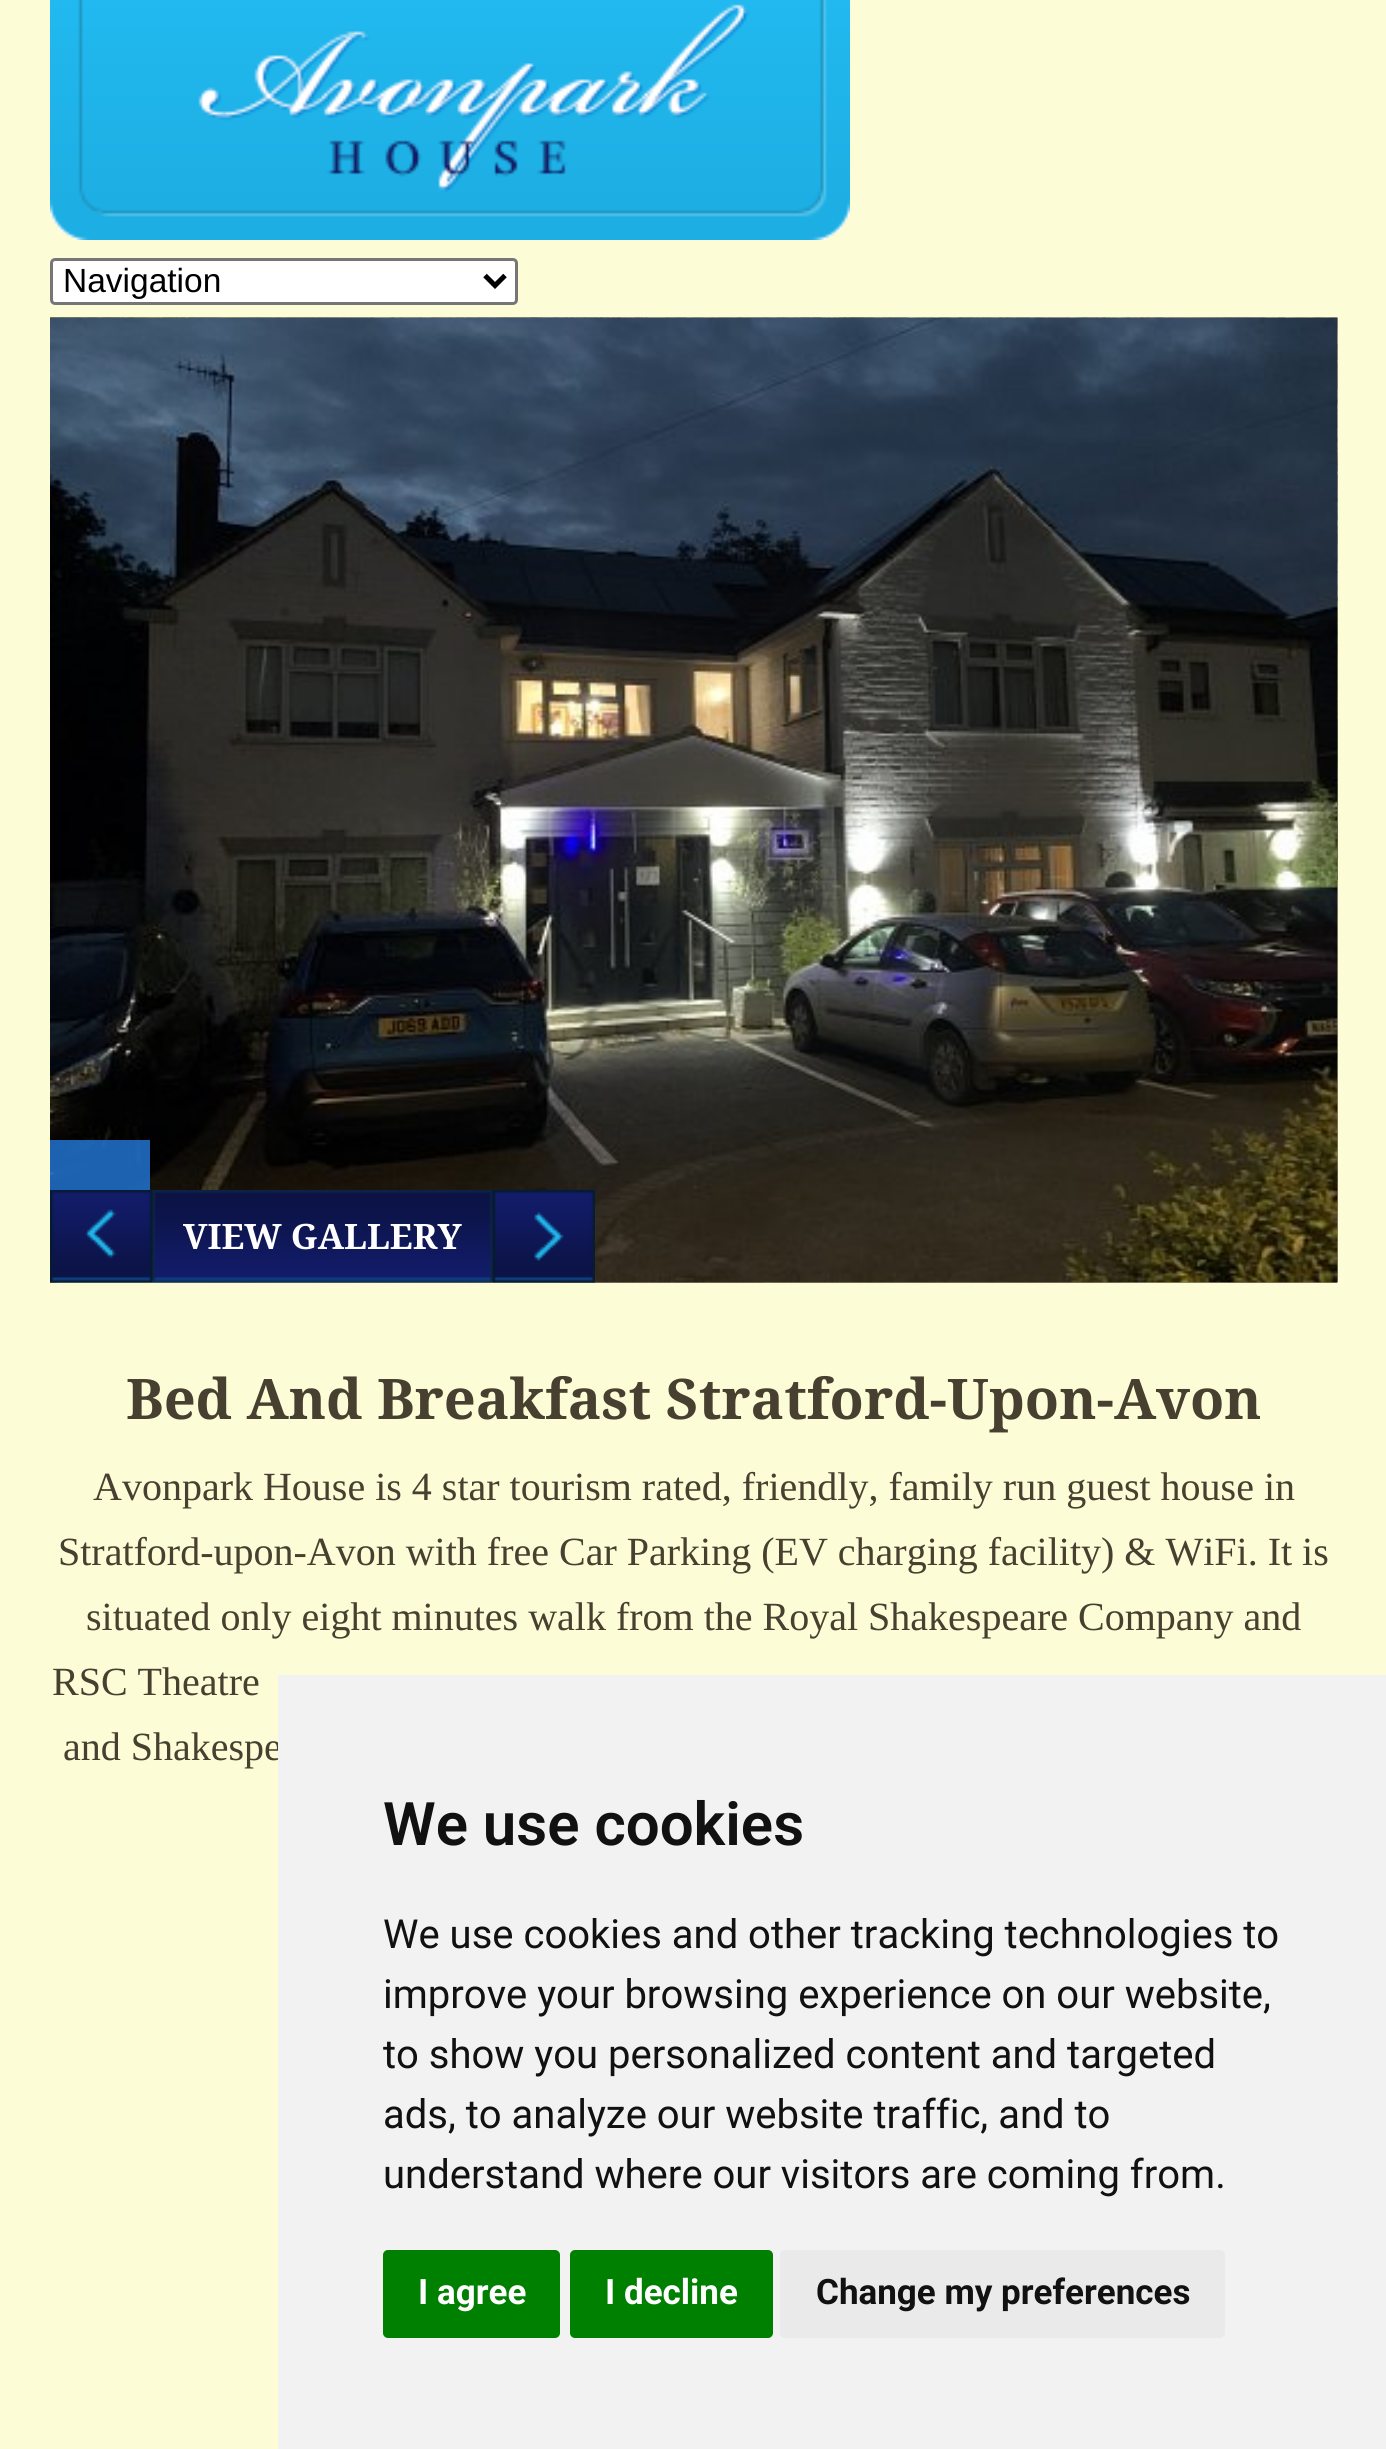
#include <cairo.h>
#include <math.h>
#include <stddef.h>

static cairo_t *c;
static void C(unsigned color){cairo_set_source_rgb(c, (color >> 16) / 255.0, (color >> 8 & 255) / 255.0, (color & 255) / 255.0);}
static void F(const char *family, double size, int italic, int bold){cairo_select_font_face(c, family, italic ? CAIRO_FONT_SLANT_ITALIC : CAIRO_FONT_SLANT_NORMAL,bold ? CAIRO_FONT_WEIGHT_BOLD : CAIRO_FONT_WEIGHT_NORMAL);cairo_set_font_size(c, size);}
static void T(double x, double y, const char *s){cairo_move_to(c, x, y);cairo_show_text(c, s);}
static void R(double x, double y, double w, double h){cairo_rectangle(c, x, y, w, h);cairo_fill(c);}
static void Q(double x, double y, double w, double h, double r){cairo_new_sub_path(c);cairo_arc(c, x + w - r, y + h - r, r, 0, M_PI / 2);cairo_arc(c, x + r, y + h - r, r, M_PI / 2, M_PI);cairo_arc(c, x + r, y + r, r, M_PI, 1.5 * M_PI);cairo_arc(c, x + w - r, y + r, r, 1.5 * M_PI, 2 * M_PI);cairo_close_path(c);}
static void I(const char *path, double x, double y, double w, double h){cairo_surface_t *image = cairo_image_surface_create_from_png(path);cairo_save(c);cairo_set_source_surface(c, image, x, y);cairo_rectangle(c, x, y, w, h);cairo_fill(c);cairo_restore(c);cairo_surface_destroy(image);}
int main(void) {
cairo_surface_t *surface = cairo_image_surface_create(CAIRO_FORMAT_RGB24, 1386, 2449);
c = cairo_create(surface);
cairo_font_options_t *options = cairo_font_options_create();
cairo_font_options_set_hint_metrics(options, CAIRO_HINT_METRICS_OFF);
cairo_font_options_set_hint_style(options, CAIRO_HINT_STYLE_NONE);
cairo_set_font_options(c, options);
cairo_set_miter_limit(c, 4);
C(0xfcfcd6);
cairo_paint(c);
I("1.png",50,0,800,240);
C(0xffffff);
Q(51.5,259.5,465,44,3.5);
cairo_fill_preserve(c);
C(0x767676);
cairo_set_line_width(c,3);
cairo_stroke(c);
cairo_new_path(c);
cairo_move_to(c,485,275.5);
cairo_line_to(c,495,285.5);
cairo_line_to(c,505,275.5);
C(0x000000);
cairo_set_line_width(c,5);
cairo_stroke(c);
F("Liberation Sans",33.5,0,0);
T(63,292,"Navigation");
I("2.png",50,317,1288,966);
I("3.png",50,317,1288,966);
I("4.png",50,317,1288,966);
I("5.png",50,317,1288,966);
I("6.png",50,317,1288,563);
I("7.png",50,317,1288,563);
I("8.png",50,317,1288,563);
I("9.png",50,317,1288,563);
I("10.png",50,317,1288,966);
cairo_set_source_rgba(c,0.122,0.427,0.765,0.9);
R(50,1140,100,50);
I("11.png",50,1190,103,93);
I("12.png",152,1190,341,93);
F("Droid Serif",35,0,1);
C(0xffffff);
T(183,1249,"VIEW GALLERY");
I("13.png",492,1190,103,93);
F("Droid Serif",56,0,1);
C(0x473f2f);
T(126,1419,"Bed And Breakfast Stratford-Upon-Avon");
F("Liberation Serif",40,0,0);
T(93,1500,"Avonpark House is 4 star tourism rated, friendly, family run guest house in");
T(58,1565,"Stratford-upon-Avon with free Car Parking (EV charging facility) & WiFi. It is");
T(86,1630,"situated only eight minutes walk from the Royal Shakespeare Company and");
T(52,1695,"RSC Theatre");
T(63,1760,"and Shakespe");
C(0xf2f2f2);
R(278,1675,1108,774);
F("Roboto SemiBold",60,0,0);
C(0x111111);
T(383,1845,"We use cookies");
F("Roboto",40,0,0);
T(383,1948,"We use cookies and other tracking technologies to");
T(383,2008,"improve your browsing experience on our website,");
T(383,2068,"to show you personalized content and targeted");
T(383,2128,"ads, to analyze our website traffic, and to");
T(383,2188,"understand where our visitors are coming from.");
C(0x008000);
Q(383,2250,177,88,5);
cairo_fill(c);
F("Roboto",35,0,1);
C(0xffffff);
T(418,2304,"I agree");
C(0x008000);
Q(570,2250,203,88,5);
cairo_fill(c);
C(0xffffff);
T(605,2304,"I decline");
C(0xeaeaea);
Q(780,2250,445,88,5);
cairo_fill(c);
C(0x111111);
T(816,2304,"Change my preferences");
cairo_surface_write_to_png(surface, "o.png");
cairo_font_options_destroy(options);
cairo_destroy(c);
cairo_surface_destroy(surface);
return 0;
}
